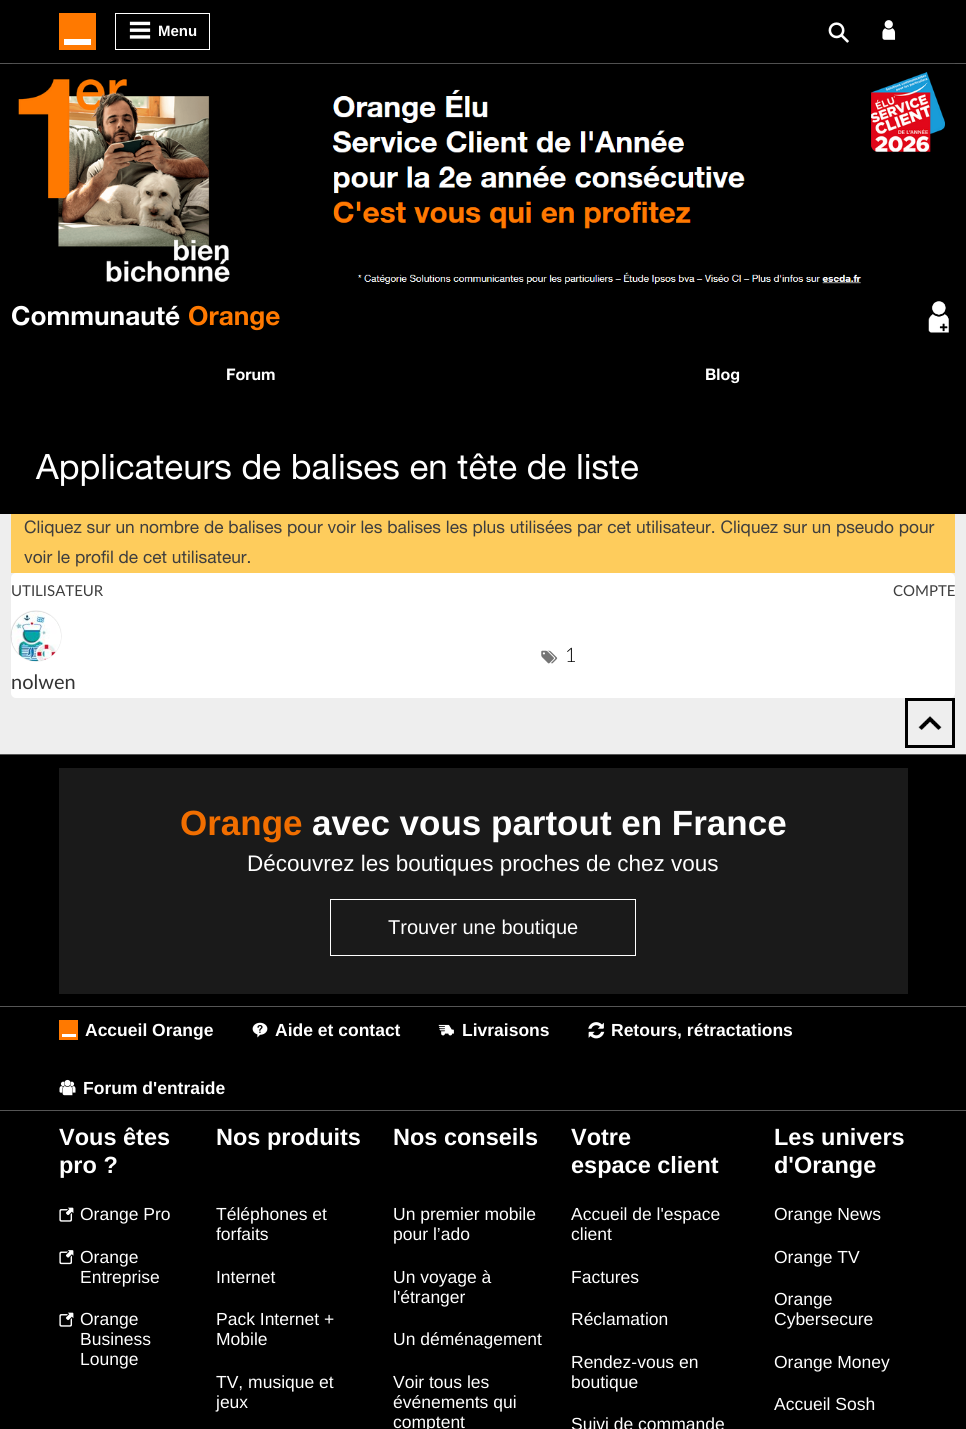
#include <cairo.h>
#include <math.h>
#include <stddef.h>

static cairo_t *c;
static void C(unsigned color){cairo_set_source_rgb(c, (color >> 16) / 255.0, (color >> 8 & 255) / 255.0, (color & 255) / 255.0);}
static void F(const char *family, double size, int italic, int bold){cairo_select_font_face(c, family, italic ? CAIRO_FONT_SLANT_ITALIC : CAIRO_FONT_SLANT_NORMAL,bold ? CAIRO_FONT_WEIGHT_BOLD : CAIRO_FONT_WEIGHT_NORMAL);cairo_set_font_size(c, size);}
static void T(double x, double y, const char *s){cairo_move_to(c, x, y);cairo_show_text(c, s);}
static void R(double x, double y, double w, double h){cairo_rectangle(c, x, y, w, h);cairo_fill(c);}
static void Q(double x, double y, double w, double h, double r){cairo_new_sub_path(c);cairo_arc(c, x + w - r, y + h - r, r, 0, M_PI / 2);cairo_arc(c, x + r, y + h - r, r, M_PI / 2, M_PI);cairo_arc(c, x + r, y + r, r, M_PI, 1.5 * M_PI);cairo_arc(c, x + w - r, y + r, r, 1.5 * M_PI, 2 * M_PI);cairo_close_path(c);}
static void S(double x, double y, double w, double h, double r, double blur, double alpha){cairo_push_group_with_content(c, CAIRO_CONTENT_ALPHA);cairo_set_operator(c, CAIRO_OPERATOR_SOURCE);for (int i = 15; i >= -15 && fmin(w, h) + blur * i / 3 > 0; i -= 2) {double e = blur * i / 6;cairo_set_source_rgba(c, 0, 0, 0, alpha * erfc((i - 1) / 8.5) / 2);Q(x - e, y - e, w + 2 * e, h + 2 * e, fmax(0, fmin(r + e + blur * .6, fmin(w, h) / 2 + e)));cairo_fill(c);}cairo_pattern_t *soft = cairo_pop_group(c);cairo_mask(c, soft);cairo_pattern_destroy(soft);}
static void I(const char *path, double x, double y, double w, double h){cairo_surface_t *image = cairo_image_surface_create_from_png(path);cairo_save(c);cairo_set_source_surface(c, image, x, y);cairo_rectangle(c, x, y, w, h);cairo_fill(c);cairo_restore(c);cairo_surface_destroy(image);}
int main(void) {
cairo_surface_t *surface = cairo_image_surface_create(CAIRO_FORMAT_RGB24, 966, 1429);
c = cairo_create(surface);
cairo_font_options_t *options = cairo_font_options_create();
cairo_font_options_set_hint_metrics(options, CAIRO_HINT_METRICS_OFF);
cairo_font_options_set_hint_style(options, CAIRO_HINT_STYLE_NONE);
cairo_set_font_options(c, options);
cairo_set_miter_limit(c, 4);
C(0xeeeeee);
cairo_paint(c);
C(0x000000);
R(0,0,966,63);
C(0xff7900);
R(59,13,37,37);
C(0xffffff);
R(64,39,27,6);
cairo_rectangle(c,115.5,13.5,94,36);
cairo_set_line_width(c,1);
cairo_stroke(c);
I("1.png",129,21,22,18);
F("Liberation Sans",15,0,1);
T(158,36,"Menu");
I("2.png",828,22,21,21);
I("3.png",882,20,14,20);
C(0x555555);
R(0,63,966,1);
C(0x000000);
R(0,64,966,450);
I("4.png",12,63,943,221);
F("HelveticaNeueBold",26.25,0,1);
C(0xffffff);
T(11,325,"Communauté");
C(0xff7900);
T(188,325,"Orange");
I("5.png",928,301,21,32);
F("HelveticaNeueBold",16,0,1);
C(0xffffff);
T(226,380,"Forum");
T(705,380,"Blog");
F("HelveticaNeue",35,0,0);
T(36,479,"Applicateurs de balises en tête de liste");
C(0xfecc5c);
R(11,514,944,59);
F("HelveticaNeue",17.32,0,0);
C(0x3e3e3e);
T(24,533,"Cliquez sur un nombre de balises pour voir les balises les plus utilisées par cet utilisateur. Cliquez sur un pseudo pour");
T(24,563,"voir le profil de cet utilisateur.");
C(0xffffff);
Q(11,573,944,125,5);
cairo_fill(c);
F("Lato",15,0,0);
C(0x3e3e3e);
T(11,596,"UTILISATEUR");
T(893,596,"COMPTE");
I("6.png",541,650,17,14);
F("Lato Light",20,0,0);
C(0x000000);
T(565,662,"1");
C(0xc4c4c4);
S(11,611,50,50,25,.5,1);
I("7.png",11,611,50,51);
F("Lato",20,0,0);
C(0x333333);
T(11,689,"nolwen");
I("8.png",918,716,24,14);
cairo_rectangle(c,906.5,699.5,47,47);
C(0x000000);
cairo_set_line_width(c,3);
cairo_stroke(c);
R(0,755,966,251);
C(0x555555);
R(0,754,966,1);
C(0x1a1a1a);
R(59,768,849,226);
F("Liberation Sans",35,0,1);
C(0xf16e00);
T(180,835,"Orange");
C(0xffffff);
T(312,835,"avec vous partout en France");
F("Liberation Sans",22.5,0,0);
T(247,871,"Découvrez les boutiques proches de chez vous");
cairo_rectangle(c,330.5,899.5,305,56);
cairo_set_line_width(c,1);
cairo_stroke(c);
F("Liberation Sans",20,0,0);
T(388,934,"Trouver une boutique");
C(0x000000);
R(0,1007,966,103);
C(0x555555);
R(0,1006,966,1);
C(0xff7900);
R(59,1020,19,20);
C(0xffffff);
R(62,1034,14,3);
F("Liberation Sans",17.5,0,1);
T(85,1036,"Accueil Orange");
I("9.png",252,1022,16,16);
T(275,1036,"Aide et contact");
I("10.png",438,1024,16,12);
T(462,1036,"Livraisons");
I("11.png",588,1022,17,17);
T(611,1036,"Retours, rétractations");
I("12.png",59,1079,17,17);
T(83,1094,"Forum d'entraide");
C(0x000000);
R(0,1111,966,318);
C(0x555555);
R(0,1110,966,1);
F("Liberation Sans",23.5,0,1);
C(0xffffff);
T(59,1145,"Vous êtes");
T(59,1173,"pro ?");
T(216,1145,"Nos produits");
T(393,1145,"Nos conseils");
T(571,1145,"Votre");
T(571,1173,"espace client");
T(774,1145,"Les univers");
T(774,1173,"d'Orange");
I("13.png",59,1207,15,15);
F("Liberation Sans",17.5,0,0);
T(80,1220,"Orange Pro");
I("14.png",59,1250,15,15);
T(80,1263,"Orange");
T(80,1283,"Entreprise");
I("13.png",59,1312,15,15);
T(80,1325,"Orange");
T(80,1345,"Business");
T(80,1365,"Lounge");
T(216,1220,"Téléphones et");
T(216,1240,"forfaits");
T(216,1283,"Internet");
T(216,1325,"Pack Internet +");
T(216,1345,"Mobile");
T(216,1388,"TV, musique et");
T(216,1408,"jeux");
T(393,1220,"Un premier mobile");
T(393,1240,"pour l’ado");
T(393,1283,"Un voyage à");
T(393,1303,"l'étranger");
T(393,1345,"Un déménagement");
T(393,1388,"Voir tous les");
T(393,1408,"événements qui");
T(393,1428,"comptent");
T(571,1220,"Accueil de l'espace");
T(571,1240,"client");
T(571,1283,"Factures");
T(571,1325,"Réclamation");
T(571,1368,"Rendez-vous en");
T(571,1388,"boutique");
T(571,1430,"Suivi de commande");
T(774,1220,"Orange News");
T(774,1263,"Orange TV");
T(774,1305,"Orange");
T(774,1325,"Cybersecure");
T(774,1368,"Orange Money");
T(774,1410,"Accueil Sosh");
cairo_surface_write_to_png(surface, "o.png");
cairo_font_options_destroy(options);
cairo_destroy(c);
cairo_surface_destroy(surface);
return 0;
}
